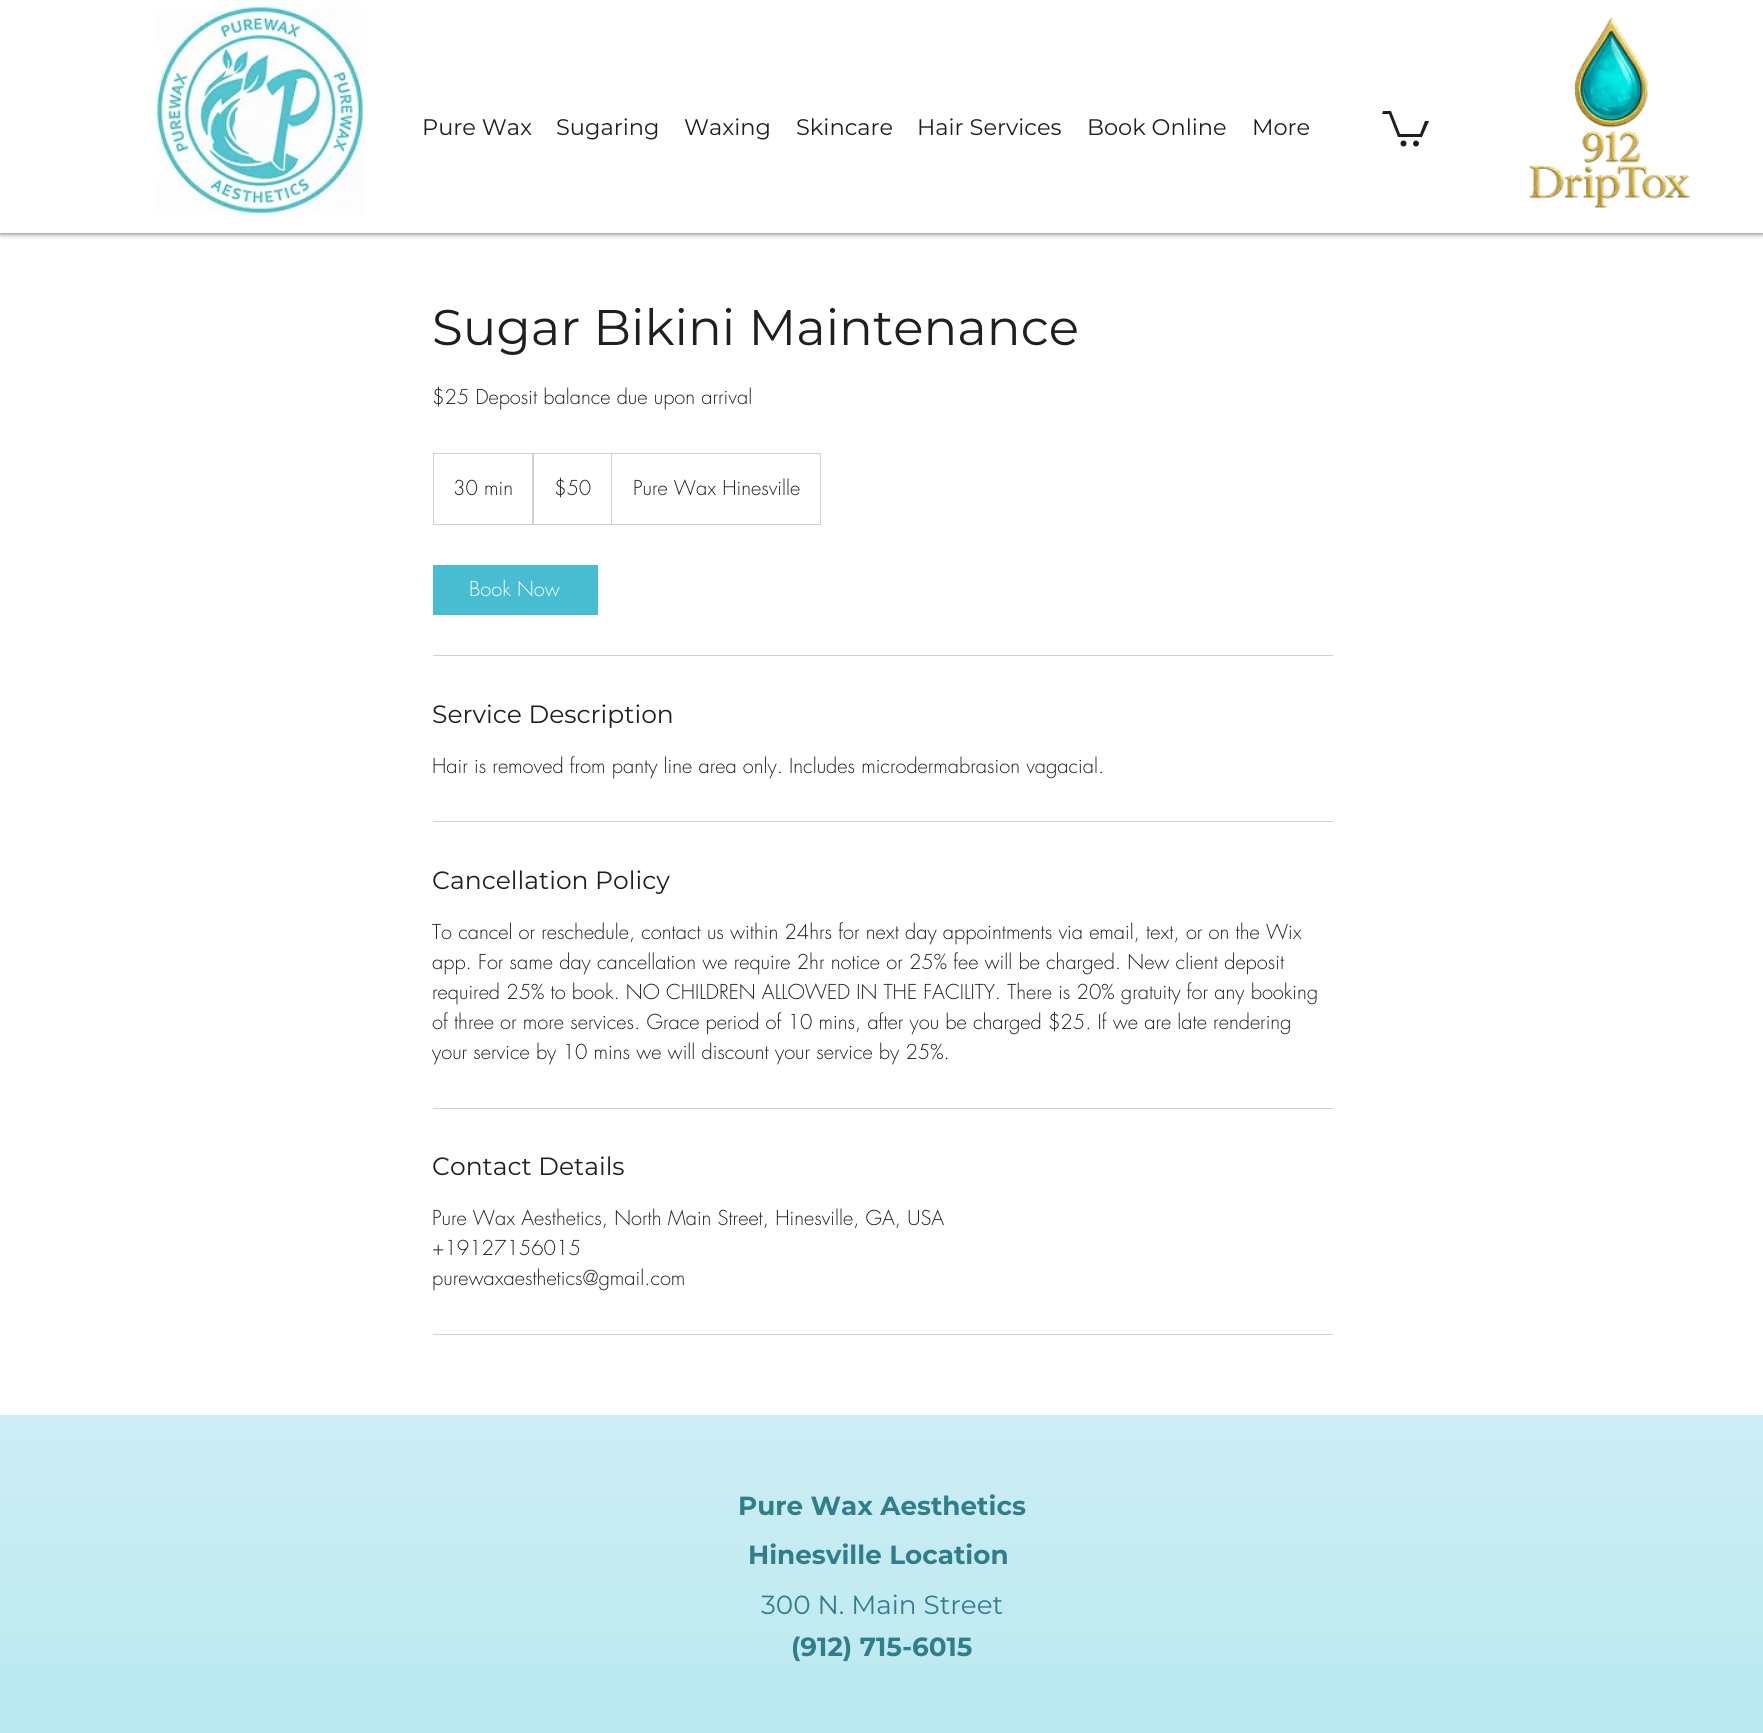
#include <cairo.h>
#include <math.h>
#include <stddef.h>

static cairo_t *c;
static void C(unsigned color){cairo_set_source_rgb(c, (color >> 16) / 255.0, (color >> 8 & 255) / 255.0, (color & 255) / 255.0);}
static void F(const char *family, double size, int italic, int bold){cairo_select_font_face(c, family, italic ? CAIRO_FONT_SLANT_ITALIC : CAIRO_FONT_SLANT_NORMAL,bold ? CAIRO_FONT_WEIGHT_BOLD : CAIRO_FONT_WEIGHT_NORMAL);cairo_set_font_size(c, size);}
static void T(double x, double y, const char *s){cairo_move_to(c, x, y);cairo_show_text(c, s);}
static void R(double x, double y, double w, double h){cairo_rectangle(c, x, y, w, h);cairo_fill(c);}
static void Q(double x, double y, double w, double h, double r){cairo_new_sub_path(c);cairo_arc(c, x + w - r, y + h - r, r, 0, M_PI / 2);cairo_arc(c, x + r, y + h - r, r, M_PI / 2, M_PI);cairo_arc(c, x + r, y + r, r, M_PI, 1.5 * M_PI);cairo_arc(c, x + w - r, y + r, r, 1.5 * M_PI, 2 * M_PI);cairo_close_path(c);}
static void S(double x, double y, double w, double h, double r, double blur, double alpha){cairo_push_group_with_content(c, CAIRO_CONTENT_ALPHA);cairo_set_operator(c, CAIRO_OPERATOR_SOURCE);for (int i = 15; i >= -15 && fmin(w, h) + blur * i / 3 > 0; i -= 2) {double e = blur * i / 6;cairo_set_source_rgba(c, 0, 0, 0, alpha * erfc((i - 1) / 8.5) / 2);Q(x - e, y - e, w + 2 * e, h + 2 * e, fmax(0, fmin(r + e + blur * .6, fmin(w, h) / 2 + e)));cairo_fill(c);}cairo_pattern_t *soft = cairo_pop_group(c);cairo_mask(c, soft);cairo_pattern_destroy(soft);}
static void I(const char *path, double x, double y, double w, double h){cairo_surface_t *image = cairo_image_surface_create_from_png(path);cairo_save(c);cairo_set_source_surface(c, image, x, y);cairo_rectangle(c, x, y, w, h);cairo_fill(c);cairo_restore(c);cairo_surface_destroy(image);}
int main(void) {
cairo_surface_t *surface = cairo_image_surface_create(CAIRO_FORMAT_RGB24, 1763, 1733);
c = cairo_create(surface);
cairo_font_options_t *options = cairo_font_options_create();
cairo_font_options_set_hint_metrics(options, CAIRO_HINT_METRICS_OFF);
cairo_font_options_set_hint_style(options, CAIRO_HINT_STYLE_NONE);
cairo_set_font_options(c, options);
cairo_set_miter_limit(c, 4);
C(0xffffff);
cairo_paint(c);
cairo_save(c);
cairo_set_fill_rule(c,CAIRO_FILL_RULE_EVEN_ODD);
cairo_new_path(c);
cairo_move_to(c,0,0);
cairo_line_to(c,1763,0);
cairo_line_to(c,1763,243);
cairo_line_to(c,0,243);
cairo_close_path(c);
cairo_move_to(c,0,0);
cairo_line_to(c,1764,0);
cairo_line_to(c,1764,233);
cairo_line_to(c,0,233);
cairo_close_path(c);
cairo_clip(c);
C(0x000000);
S(0,0,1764,233,0,3,.7);
cairo_restore(c);
cairo_set_source_rgba(c,1,1,1,0.6);
R(0,232,1763,1);
I("1.png",155,0,212,216);
F("Montserrat",22.5,0,0);
C(0x1f1f1f);
T(422,135,"Pure Wax");
T(556,135,"Sugaring");
T(684,135,"Waxing");
T(796,135,"Skincare");
T(917,135,"Hair Services");
T(1087,135,"Book Online");
T(1252,135,"More");
cairo_new_path(c);
cairo_move_to(c,1429,121);
cairo_line_to(c,1422,137);
cairo_line_to(c,1398,137);
cairo_line_to(c,1389,114);
cairo_line_to(c,1382,114);
cairo_line_to(c,1383,111);
cairo_line_to(c,1391,111);
cairo_line_to(c,1400,134);
cairo_line_to(c,1420,134);
cairo_line_to(c,1425,121);
cairo_fill(c);
cairo_arc(c,1416,143.5,3,0,2 * M_PI);
cairo_fill(c);
cairo_arc(c,1403.5,143.5,3,0,2 * M_PI);
cairo_fill(c);
I("2.png",1528,17,163,191);
F("Montserrat",50,0,0);
T(432,345,"Sugar Bikini Maintenance");
F("futura Light",20,0,0);
T(432,404,"$25 Deposit balance due upon arrival");
cairo_rectangle(c,433.5,453.5,387,71);
C(0xd2d2d2);
cairo_set_line_width(c,1);
cairo_stroke(c);
C(0x1f1f1f);
T(453,495,"30 min");
cairo_save(c);
cairo_rectangle(c,434,454,386,70);
cairo_clip(c);
C(0xd2d2d2);
cairo_new_path(c);
cairo_move_to(c,532,524);
cairo_line_to(c,532,452);
cairo_line_to(c,534,454);
cairo_line_to(c,534,524);
cairo_close_path(c);
cairo_fill(c);
cairo_restore(c);
T(554,495,"$50");
C(0xd2d2d2);
cairo_new_path(c);
cairo_move_to(c,611,524);
cairo_line_to(c,611,452);
cairo_line_to(c,612,454);
cairo_line_to(c,612,524);
cairo_close_path(c);
cairo_fill(c);
C(0x1f1f1f);
T(633,495,"Pure Wax Hinesville");
C(0x48bdd1);
R(433,565,165,50);
C(0xffffff);
T(469,596,"Book Now");
C(0xd2d2d2);
R(433,655,900,1);
F("Montserrat",25,0,0);
C(0x1f1f1f);
T(432,723,"Service Description");
F("futura Light",20,0,0);
T(432,773,"Hair is removed from panty line area only. Includes microdermabrasion vagacial.");
C(0xd2d2d2);
R(433,821,900,1);
F("Montserrat",25,0,0);
C(0x1f1f1f);
T(432,889,"Cancellation Policy");
F("futura Light",20,0,0);
T(432,939,"To cancel or reschedule, contact us within 24hrs for next day appointments via email, text, or on the Wix");
T(432,969,"app. For same day cancellation we require 2hr notice or 25% fee will be charged. New client deposit");
T(432,999,"required 25% to book. NO CHILDREN ALLOWED IN THE FACILITY. There is 20% gratuity for any booking");
T(432,1029,"of three or more services. Grace period of 10 mins, after you be charged $25. If we are late rendering");
T(432,1059,"your service by 10 mins we will discount your service by 25%.");
C(0xd2d2d2);
R(433,1108,900,1);
F("Montserrat",25,0,0);
C(0x1f1f1f);
T(432,1175,"Contact Details");
F("futura Light",20,0,0);
T(432,1225,"Pure Wax Aesthetics, North Main Street, Hinesville, GA, USA");
T(432,1255,"+19127156015");
T(432,1285,"purewaxaesthetics@gmail.com");
C(0xd2d2d2);
R(433,1334,900,1);
C(0xbbe8f0);
R(0,1415,1763,318);
I("3.png",0,1415,1763,249);
F("Montserrat",26.25,0,1);
C(0x307e8b);
T(738,1515,"Pure Wax Aesthetics");
T(748,1564,"Hinesville Location");
F("Montserrat",26.25,0,0);
T(761,1614,"300 N. Main Street");
F("Montserrat",26.25,0,1);
T(791,1656,"(912) 715-6015");
cairo_surface_write_to_png(surface, "o.png");
cairo_font_options_destroy(options);
cairo_destroy(c);
cairo_surface_destroy(surface);
return 0;
}
